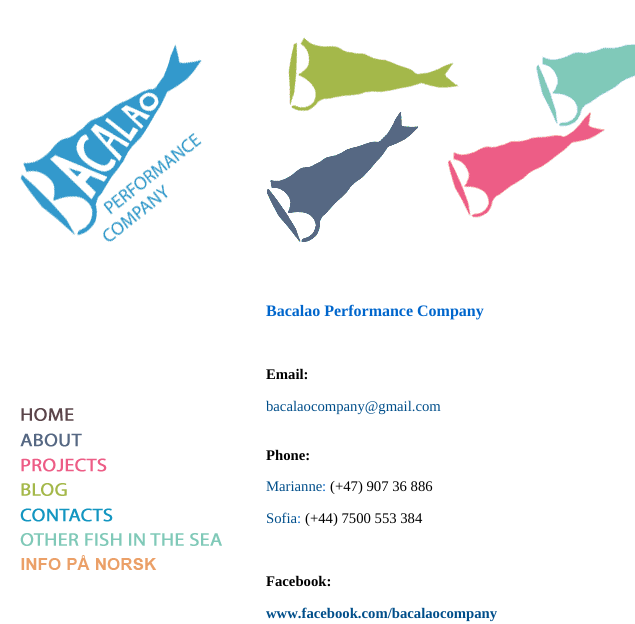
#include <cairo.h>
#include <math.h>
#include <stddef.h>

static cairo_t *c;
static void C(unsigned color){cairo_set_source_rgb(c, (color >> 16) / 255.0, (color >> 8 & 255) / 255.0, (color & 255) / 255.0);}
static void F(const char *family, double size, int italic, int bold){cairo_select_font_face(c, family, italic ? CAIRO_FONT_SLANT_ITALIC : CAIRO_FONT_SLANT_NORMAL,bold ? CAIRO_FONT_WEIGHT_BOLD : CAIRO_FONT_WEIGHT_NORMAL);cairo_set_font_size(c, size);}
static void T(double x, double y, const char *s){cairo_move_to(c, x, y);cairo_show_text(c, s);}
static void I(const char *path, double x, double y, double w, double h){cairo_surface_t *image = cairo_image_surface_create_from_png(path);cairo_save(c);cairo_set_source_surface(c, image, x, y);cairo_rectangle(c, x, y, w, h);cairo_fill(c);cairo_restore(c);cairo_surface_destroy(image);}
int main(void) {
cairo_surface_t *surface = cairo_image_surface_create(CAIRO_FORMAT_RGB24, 635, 624);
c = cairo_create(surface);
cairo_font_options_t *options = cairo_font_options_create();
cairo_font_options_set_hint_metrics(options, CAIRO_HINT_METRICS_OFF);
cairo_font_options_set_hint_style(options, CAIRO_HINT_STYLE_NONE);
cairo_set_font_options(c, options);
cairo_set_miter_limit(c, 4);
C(0xffffff);
cairo_paint(c);
I("1.png",20,37,615,205);
I("2.png",21,408,53,13);
I("3.png",20,433,62,14);
I("4.png",21,458,86,14);
I("5.png",21,483,46,13);
I("6.png",20,508,93,14);
I("7.png",20,533,202,13);
I("8.png",21,555,136,15);
F("Liberation Serif",16,0,1);
C(0x0066cc);
T(266,316,"Bacalao Performance Company");
F("Liberation Serif",14.7,0,1);
C(0x000000);
T(266,379,"Email:");
F("Liberation Serif",14.7,0,0);
C(0x004e8a);
T(266,411,"bacalaocompany@gmail.com");
F("Liberation Serif",14.7,0,1);
C(0x000000);
T(266,460,"Phone:");
F("Liberation Serif",14.7,0,0);
C(0x004e8a);
T(266,491,"Marianne");
C(0x0066cc);
T(322,491,":");
C(0x000000);
T(330,491,"(+47) 907 36 886");
C(0x004e8a);
T(266,523,"Sofia");
C(0x0066cc);
T(297,523,":");
C(0x000000);
T(305,523,"(+44) 7500 553 384");
F("Liberation Serif",14.7,0,1);
T(266,586,"Facebook:");
C(0x004e8a);
T(266,618,"www.facebook.com/bacalaocompany");
cairo_surface_write_to_png(surface, "o.png");
cairo_font_options_destroy(options);
cairo_destroy(c);
cairo_surface_destroy(surface);
return 0;
}
